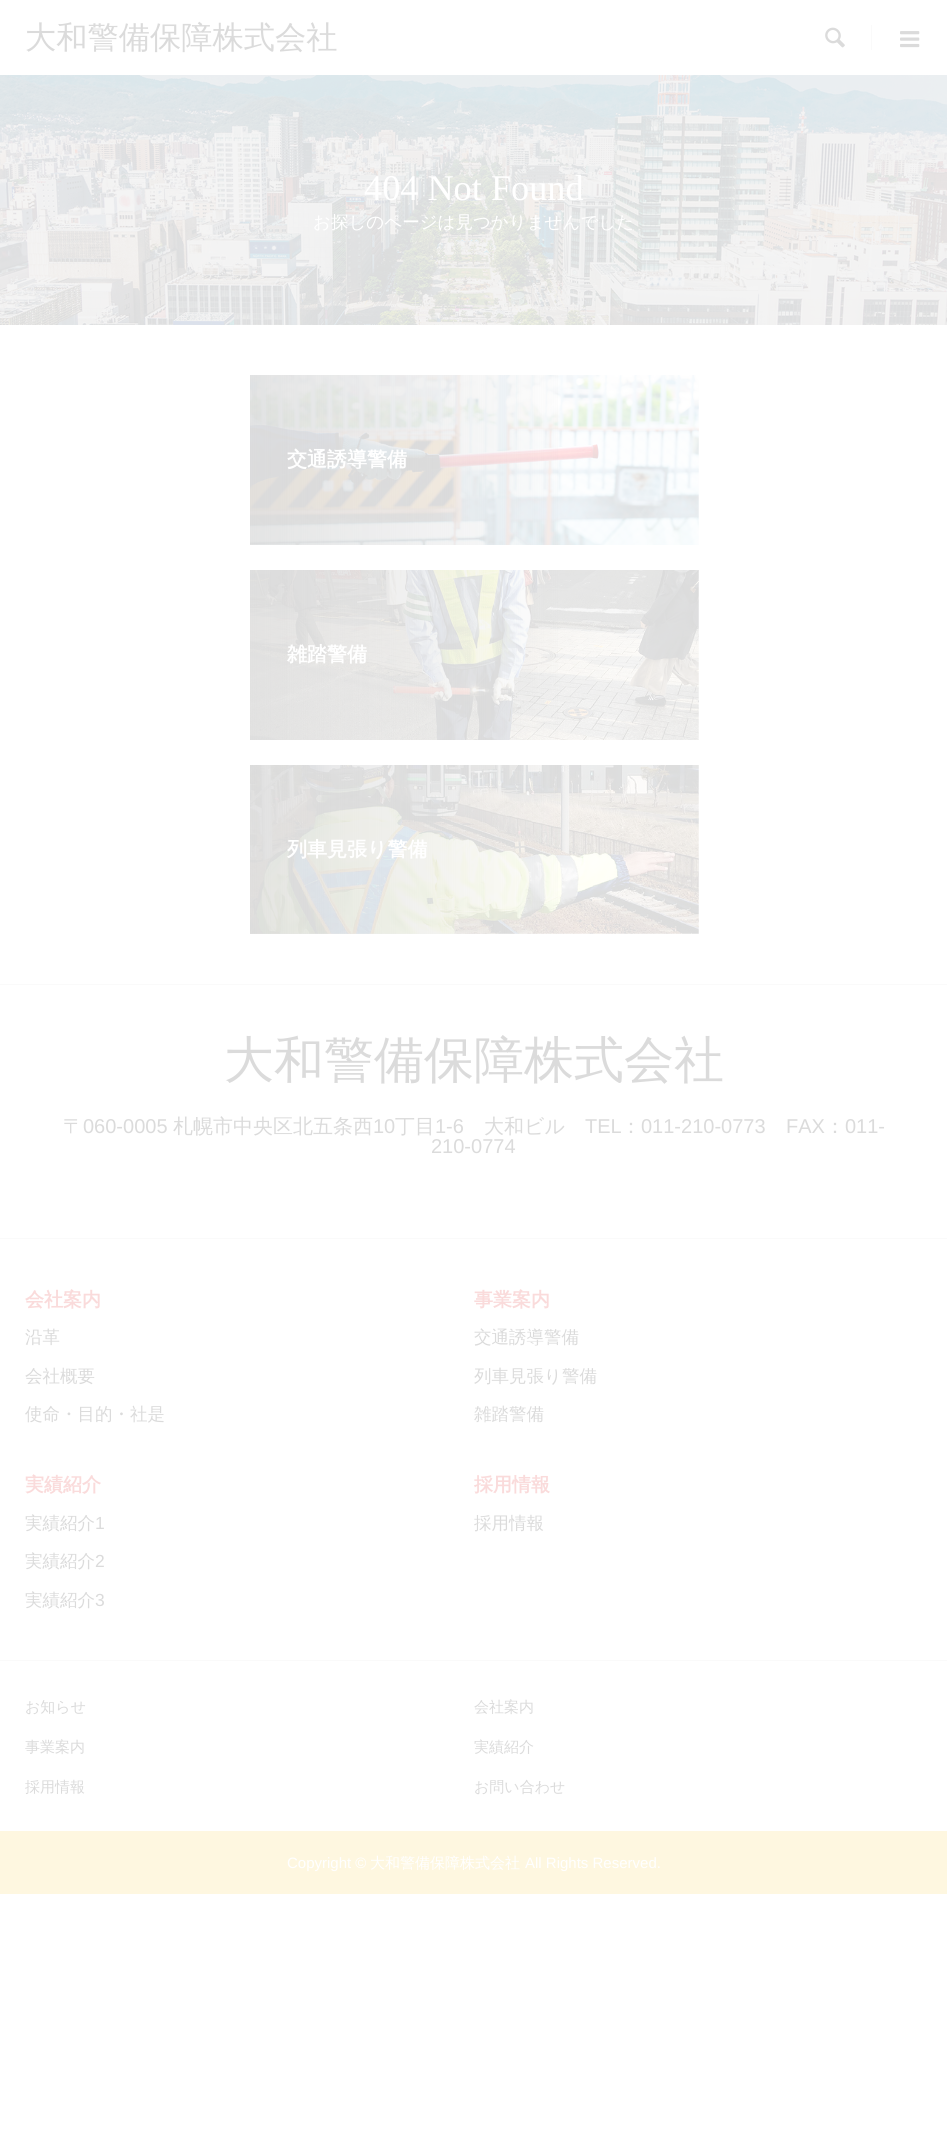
#include <cairo.h>
#include <math.h>
#include <stddef.h>

static cairo_t *c;
static void C(unsigned color){cairo_set_source_rgb(c, (color >> 16) / 255.0, (color >> 8 & 255) / 255.0, (color & 255) / 255.0);}
static void F(const char *family, double size, int italic, int bold){cairo_select_font_face(c, family, italic ? CAIRO_FONT_SLANT_ITALIC : CAIRO_FONT_SLANT_NORMAL,bold ? CAIRO_FONT_WEIGHT_BOLD : CAIRO_FONT_WEIGHT_NORMAL);cairo_set_font_size(c, size);}
static void T(double x, double y, const char *s){cairo_move_to(c, x, y);cairo_show_text(c, s);}
static void R(double x, double y, double w, double h){cairo_rectangle(c, x, y, w, h);cairo_fill(c);}
static void I(const char *path, double x, double y, double w, double h){cairo_surface_t *image = cairo_image_surface_create_from_png(path);cairo_save(c);cairo_set_source_surface(c, image, x, y);cairo_rectangle(c, x, y, w, h);cairo_fill(c);cairo_restore(c);cairo_surface_destroy(image);}
int main(void) {
cairo_surface_t *surface = cairo_image_surface_create(CAIRO_FORMAT_RGB24, 947, 2139);
c = cairo_create(surface);
cairo_font_options_t *options = cairo_font_options_create();
cairo_font_options_set_hint_metrics(options, CAIRO_HINT_METRICS_OFF);
cairo_font_options_set_hint_style(options, CAIRO_HINT_STYLE_NONE);
cairo_set_font_options(c, options);
cairo_set_miter_limit(c, 4);
cairo_pattern_t *gradient;
C(0xffffff);
cairo_paint(c);
F("WenQuanYi Zen Hei Medium",31.25,0,0);
C(0xdbdbdb);
T(25,48,"大和警備保障株式会社");
I("1.png",825,27,20,21);
C(0xfafafa);
R(871,25,1,25);
I("2.png",900,31,20,17);
I("3.png",0,75,947,250);
F("Liberation Serif",36.25,0,0);
C(0xffffff);
T(364,200,"404 Not Found");
F("WenQuanYi Zen Hei Medium",17.5,0,0);
T(313,228,"お探しのページは見つかりませんでした");
C(0xfafafa);
R(0,984,947,1);
I("4.png",250,375,449,170);
gradient = cairo_pattern_create_linear(250,460,699,460);
cairo_pattern_add_color_stop_rgba(gradient,0,0.859,0.859,0.859,.75);
cairo_pattern_add_color_stop_rgba(gradient,.75,0.859,0.859,0.859,0);
cairo_set_source(c,gradient);
cairo_pattern_destroy(gradient);
R(250,375,308,170);
F("WenQuanYi Zen Hei",20,0,1);
C(0xffffff);
T(287,466,"交通誘導警備");
I("5.png",250,570,449,170);
gradient = cairo_pattern_create_linear(250,655,699,655);
cairo_pattern_add_color_stop_rgba(gradient,0,0.859,0.859,0.859,.75);
cairo_pattern_add_color_stop_rgba(gradient,.75,0.859,0.859,0.859,0);
cairo_set_source(c,gradient);
cairo_pattern_destroy(gradient);
R(250,570,308,170);
C(0xffffff);
T(287,661,"雑踏警備");
I("6.png",250,765,449,169);
gradient = cairo_pattern_create_linear(250,849,699,849);
cairo_pattern_add_color_stop_rgba(gradient,0,0.859,0.859,0.859,.75);
cairo_pattern_add_color_stop_rgba(gradient,.75,0.859,0.859,0.859,0);
cairo_set_source(c,gradient);
cairo_pattern_destroy(gradient);
R(250,765,308,169);
C(0xffffff);
T(287,856,"列車見張り警備");
C(0xfafafa);
R(0,1238,947,1);
F("WenQuanYi Zen Hei Medium",50,0,0);
C(0xdbdbdb);
T(224,1077,"大和警備保障株式会社");
F("WenQuanYi Zen Hei Medium",20,0,0);
T(63,1133,"〒");
F("Liberation Sans",20,0,0);
T(83,1133,"060-0005");
F("WenQuanYi Zen Hei Medium",20,0,0);
T(173,1133,"札幌市中央区北五条西");
F("Liberation Sans",20,0,0);
T(373,1133,"10");
F("WenQuanYi Zen Hei Medium",20,0,0);
T(395,1133,"丁目");
F("Liberation Sans",20,0,0);
T(435,1133,"1-6");
F("WenQuanYi Zen Hei Medium",20,0,0);
T(484,1133,"大和ビル");
F("Liberation Sans",20,0,0);
T(585,1133,"TEL");
F("WenQuanYi Zen Hei Medium",20,0,0);
T(621,1133,"：");
F("Liberation Sans",20,0,0);
T(641,1133,"011-210-0773");
T(786,1133,"FAX");
F("WenQuanYi Zen Hei Medium",20,0,0);
T(825,1133,"：");
F("Liberation Sans",20,0,0);
T(845,1133,"011-");
T(431,1153,"210-0774");
F("WenQuanYi Zen Hei",19,0,1);
C(0xfadbdb);
T(25,1306,"会社案内");
F("WenQuanYi Zen Hei Medium",17.5,0,0);
C(0xdbdbdb);
T(25,1343,"沿革");
T(25,1382,"会社概要");
T(25,1420,"使命・目的・社是");
F("WenQuanYi Zen Hei",19,0,1);
C(0xfadbdb);
T(474,1306,"事業案内");
F("WenQuanYi Zen Hei Medium",17.5,0,0);
C(0xdbdbdb);
T(474,1343,"交通誘導警備");
T(474,1382,"列車見張り警備");
T(474,1420,"雑踏警備");
F("WenQuanYi Zen Hei",19,0,1);
C(0xfadbdb);
T(25,1491,"実績紹介");
F("WenQuanYi Zen Hei Medium",17.5,0,0);
C(0xdbdbdb);
T(25,1529,"実績紹介");
F("Liberation Sans",17.5,0,0);
T(95,1529,"1");
F("WenQuanYi Zen Hei Medium",17.5,0,0);
T(25,1567,"実績紹介");
F("Liberation Sans",17.5,0,0);
T(95,1567,"2");
F("WenQuanYi Zen Hei Medium",17.5,0,0);
T(25,1606,"実績紹介");
F("Liberation Sans",17.5,0,0);
T(95,1606,"3");
F("WenQuanYi Zen Hei",19,0,1);
C(0xfadbdb);
T(474,1491,"採用情報");
F("WenQuanYi Zen Hei Medium",17.5,0,0);
C(0xdbdbdb);
T(474,1529,"採用情報");
C(0xfafafa);
R(0,1660,947,1);
F("WenQuanYi Zen Hei Medium",15,0,0);
C(0xdbdbdb);
T(25,1712,"お知らせ");
T(474,1712,"会社案内");
T(25,1752,"事業案内");
T(474,1752,"実績紹介");
T(25,1792,"採用情報");
T(474,1792,"お問い合わせ");
C(0xfef7e0);
R(0,1831,947,63);
F("Liberation Sans",15,0,0);
C(0xffffff);
T(287,1868,"Copyright ©");
F("WenQuanYi Zen Hei Medium",15,0,0);
T(370,1868,"大和警備保障株式会社");
F("Liberation Sans",15,0,0);
T(525,1868,"All Rights Reserved.");
cairo_surface_write_to_png(surface, "o.png");
cairo_font_options_destroy(options);
cairo_destroy(c);
cairo_surface_destroy(surface);
return 0;
}
